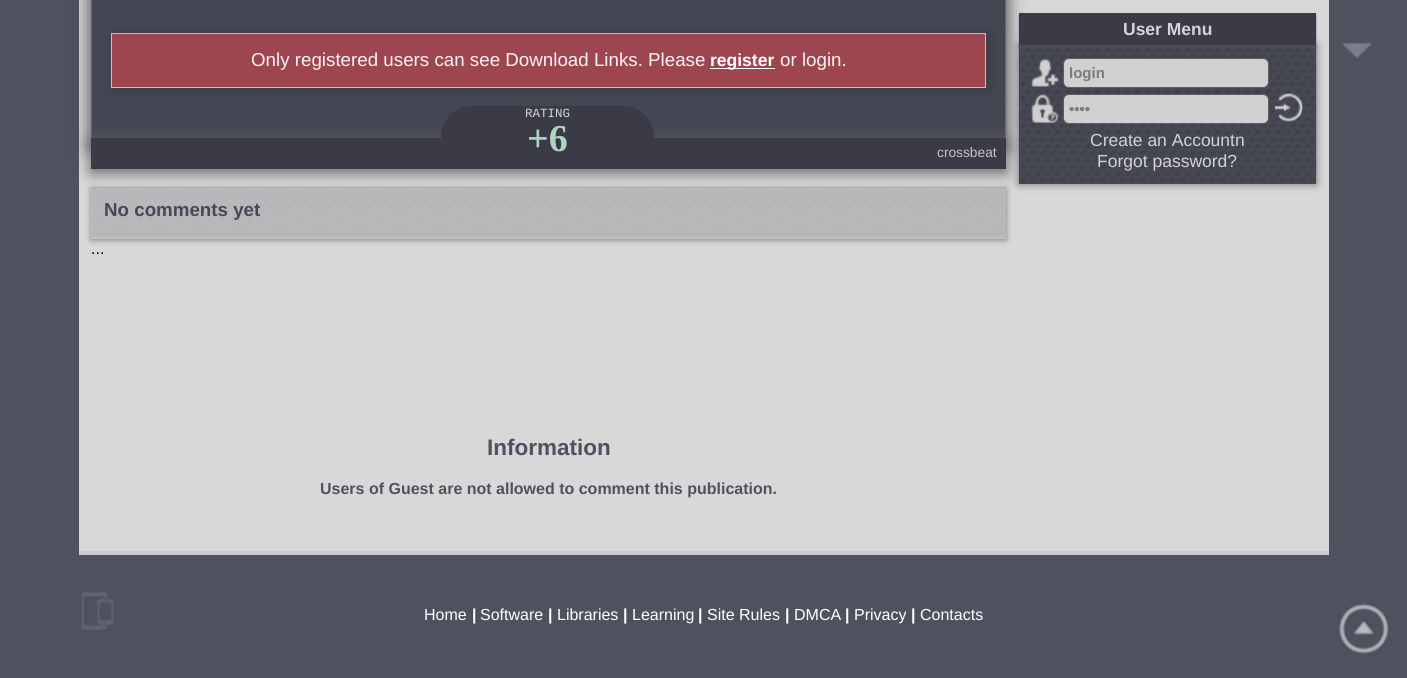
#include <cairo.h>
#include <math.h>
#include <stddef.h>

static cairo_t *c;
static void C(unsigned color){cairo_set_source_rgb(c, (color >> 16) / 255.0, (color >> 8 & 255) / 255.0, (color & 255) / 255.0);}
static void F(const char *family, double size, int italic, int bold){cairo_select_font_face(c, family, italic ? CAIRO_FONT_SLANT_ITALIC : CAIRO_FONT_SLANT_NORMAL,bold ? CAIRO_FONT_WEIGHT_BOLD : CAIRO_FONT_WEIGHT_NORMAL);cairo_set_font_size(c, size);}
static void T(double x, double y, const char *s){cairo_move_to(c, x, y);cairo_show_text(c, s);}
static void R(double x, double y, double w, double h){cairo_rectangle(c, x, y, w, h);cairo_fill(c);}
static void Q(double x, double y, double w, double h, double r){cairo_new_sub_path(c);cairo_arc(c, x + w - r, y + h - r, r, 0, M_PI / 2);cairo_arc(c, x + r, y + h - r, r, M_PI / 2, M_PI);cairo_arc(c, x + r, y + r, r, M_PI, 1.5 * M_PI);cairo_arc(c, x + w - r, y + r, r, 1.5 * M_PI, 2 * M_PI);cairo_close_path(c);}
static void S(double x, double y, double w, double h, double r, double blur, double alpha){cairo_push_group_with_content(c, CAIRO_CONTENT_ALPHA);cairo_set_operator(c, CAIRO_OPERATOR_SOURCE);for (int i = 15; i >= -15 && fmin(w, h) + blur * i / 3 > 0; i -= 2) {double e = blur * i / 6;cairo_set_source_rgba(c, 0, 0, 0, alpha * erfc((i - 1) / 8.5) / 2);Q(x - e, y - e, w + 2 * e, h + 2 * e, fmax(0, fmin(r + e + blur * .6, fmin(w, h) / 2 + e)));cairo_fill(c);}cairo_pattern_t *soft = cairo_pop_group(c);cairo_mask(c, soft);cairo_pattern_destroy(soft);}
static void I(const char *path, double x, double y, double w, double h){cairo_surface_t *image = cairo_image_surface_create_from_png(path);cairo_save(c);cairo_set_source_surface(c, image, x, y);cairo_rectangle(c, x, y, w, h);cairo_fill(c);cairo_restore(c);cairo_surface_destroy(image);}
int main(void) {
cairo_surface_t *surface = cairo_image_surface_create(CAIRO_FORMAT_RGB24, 1407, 678);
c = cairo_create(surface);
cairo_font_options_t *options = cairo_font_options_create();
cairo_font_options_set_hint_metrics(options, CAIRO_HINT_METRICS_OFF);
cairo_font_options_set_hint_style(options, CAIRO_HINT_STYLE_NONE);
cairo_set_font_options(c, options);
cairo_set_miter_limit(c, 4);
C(0x50515f);
cairo_paint(c);
C(0xd8d8d8);
R(79,0,1250,551);
C(0x3a3939);
S(91,-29,915,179,0,9.5,1);
C(0x444653);
R(92,0,913,138);
C(0x696969);
R(1005,0,1,138);
C(0x676767);
R(91,0,1,138);
C(0x696969);
S(91,141,915,32,0,7.5,1);
C(0x3a3b46);
R(91,138,915,31);
C(0x828282);
S(91,189,915,51,0,3,1);
C(0xd3d3d3);
R(91,188,915,51);
I("6.png",91,187,916,52);
C(0x717171);
S(1019,45,297,139,0,4.5,1);
C(0x4a4757);
R(1019,45,297,139);
I("1.png",1018,45,299,139);
C(0x4e4e4e);
S(1019,15,297,33,0,.5,1);
C(0x3a3b46);
R(1019,13,297,32);
F("Liberation Sans",17.5,0,1);
C(0xd9d1dc);
T(1123,35,"User Menu");
I("2.png",1031,58,29,29);
C(0xd0d0d0);
Q(1063.5,58.5,205,29,5.5);
cairo_fill_preserve(c);
C(0x635e5e);
cairo_set_line_width(c,1);
cairo_stroke(c);
F("Liberation Sans",15,0,1);
C(0x7b7b80);
T(1069,78,"login");
I("3.png",1031,94,28,29);
C(0xd0d0d0);
Q(1063.5,94.5,205,29,5.5);
cairo_fill_preserve(c);
C(0x635e5e);
cairo_stroke(c);
C(0x7b7b80);
T(1069,114,"••••");
I("4.png",1275,93,28,29);
F("Liberation Sans",17.5,0,0);
C(0xd3d3d2);
T(1090,146,"Create an Accountn");
T(1097,167,"Forgot password?");
I("5.png",1342,42,30,16);
C(0x3a3b46);
S(114,35,875,55,0,6,1);
C(0x9e4650);
cairo_rectangle(c,111.5,33.5,874,54);
cairo_fill_preserve(c);
C(0xc2c2c2);
cairo_stroke(c);
F("Liberation Sans",18.75,0,0);
C(0xf9f3f3);
T(251,66,"Only registered users can see Download Links. Please");
C(0xffffff);
R(710,68,65,1);
F("Liberation Sans",17.5,0,1);
T(710,66,"register");
F("Liberation Sans",18.75,0,0);
C(0xf9f3f3);
T(780,66,"or login.");
C(0x3a3b46);
cairo_new_path(c);
cairo_move_to(c,472,106);
cairo_line_to(c,623,106);
cairo_curve_to(c,640,106,654,120,654,137);
cairo_line_to(c,654,138);
cairo_line_to(c,441,138);
cairo_line_to(c,441,137);
cairo_curve_to(c,441,120,455,106,472,106);
cairo_close_path(c);
cairo_fill(c);
F("Liberation Mono",12.5,0,0);
C(0xd3d3d2);
T(525,117,"RATING");
F("Liberation Serif",38,0,1);
C(0xadd6c0);
T(527,151,"+6");
F("Liberation Sans",13.75,0,0);
C(0xc4c4c8);
T(937,157,"crossbeat");
F("Liberation Sans",18.75,0,1);
C(0x474855);
T(104,216,"No comments yet");
F("Liberation Sans",16,0,0);
C(0x000000);
T(91,254,"...");
F("Liberation Sans",22.5,0,1);
C(0x51505e);
T(487,455,"Information");
F("Liberation Sans",16,0,1);
T(320,494,"Users of Guest are not allowed to comment this publication.");
C(0xcccccc);
R(79,551,1250,4);
I("7.png",81,592,33,38);
F("Liberation Sans",16,0,0);
C(0xffffff);
T(424,620,"Home");
F("Liberation Sans",16,0,1);
T(472,620,"|");
F("Liberation Sans",16,0,0);
T(480,620,"Software");
F("Liberation Sans",16,0,1);
T(548,620,"|");
F("Liberation Sans",16,0,0);
T(557,620,"Libraries");
F("Liberation Sans",16,0,1);
T(623,620,"|");
F("Liberation Sans",16,0,0);
T(632,620,"Learning");
F("Liberation Sans",16,0,1);
T(698,620,"|");
F("Liberation Sans",16,0,0);
T(707,620,"Site Rules");
F("Liberation Sans",16,0,1);
T(785,620,"|");
F("Liberation Sans",16,0,0);
T(794,620,"DMCA");
F("Liberation Sans",16,0,1);
T(845,620,"|");
F("Liberation Sans",16,0,0);
T(854,620,"Privacy");
F("Liberation Sans",16,0,1);
T(911,620,"|");
F("Liberation Sans",16,0,0);
T(920,620,"Contacts");
I("8.png",1338,603,51,51);
cairo_surface_write_to_png(surface, "o.png");
cairo_font_options_destroy(options);
cairo_destroy(c);
cairo_surface_destroy(surface);
return 0;
}
